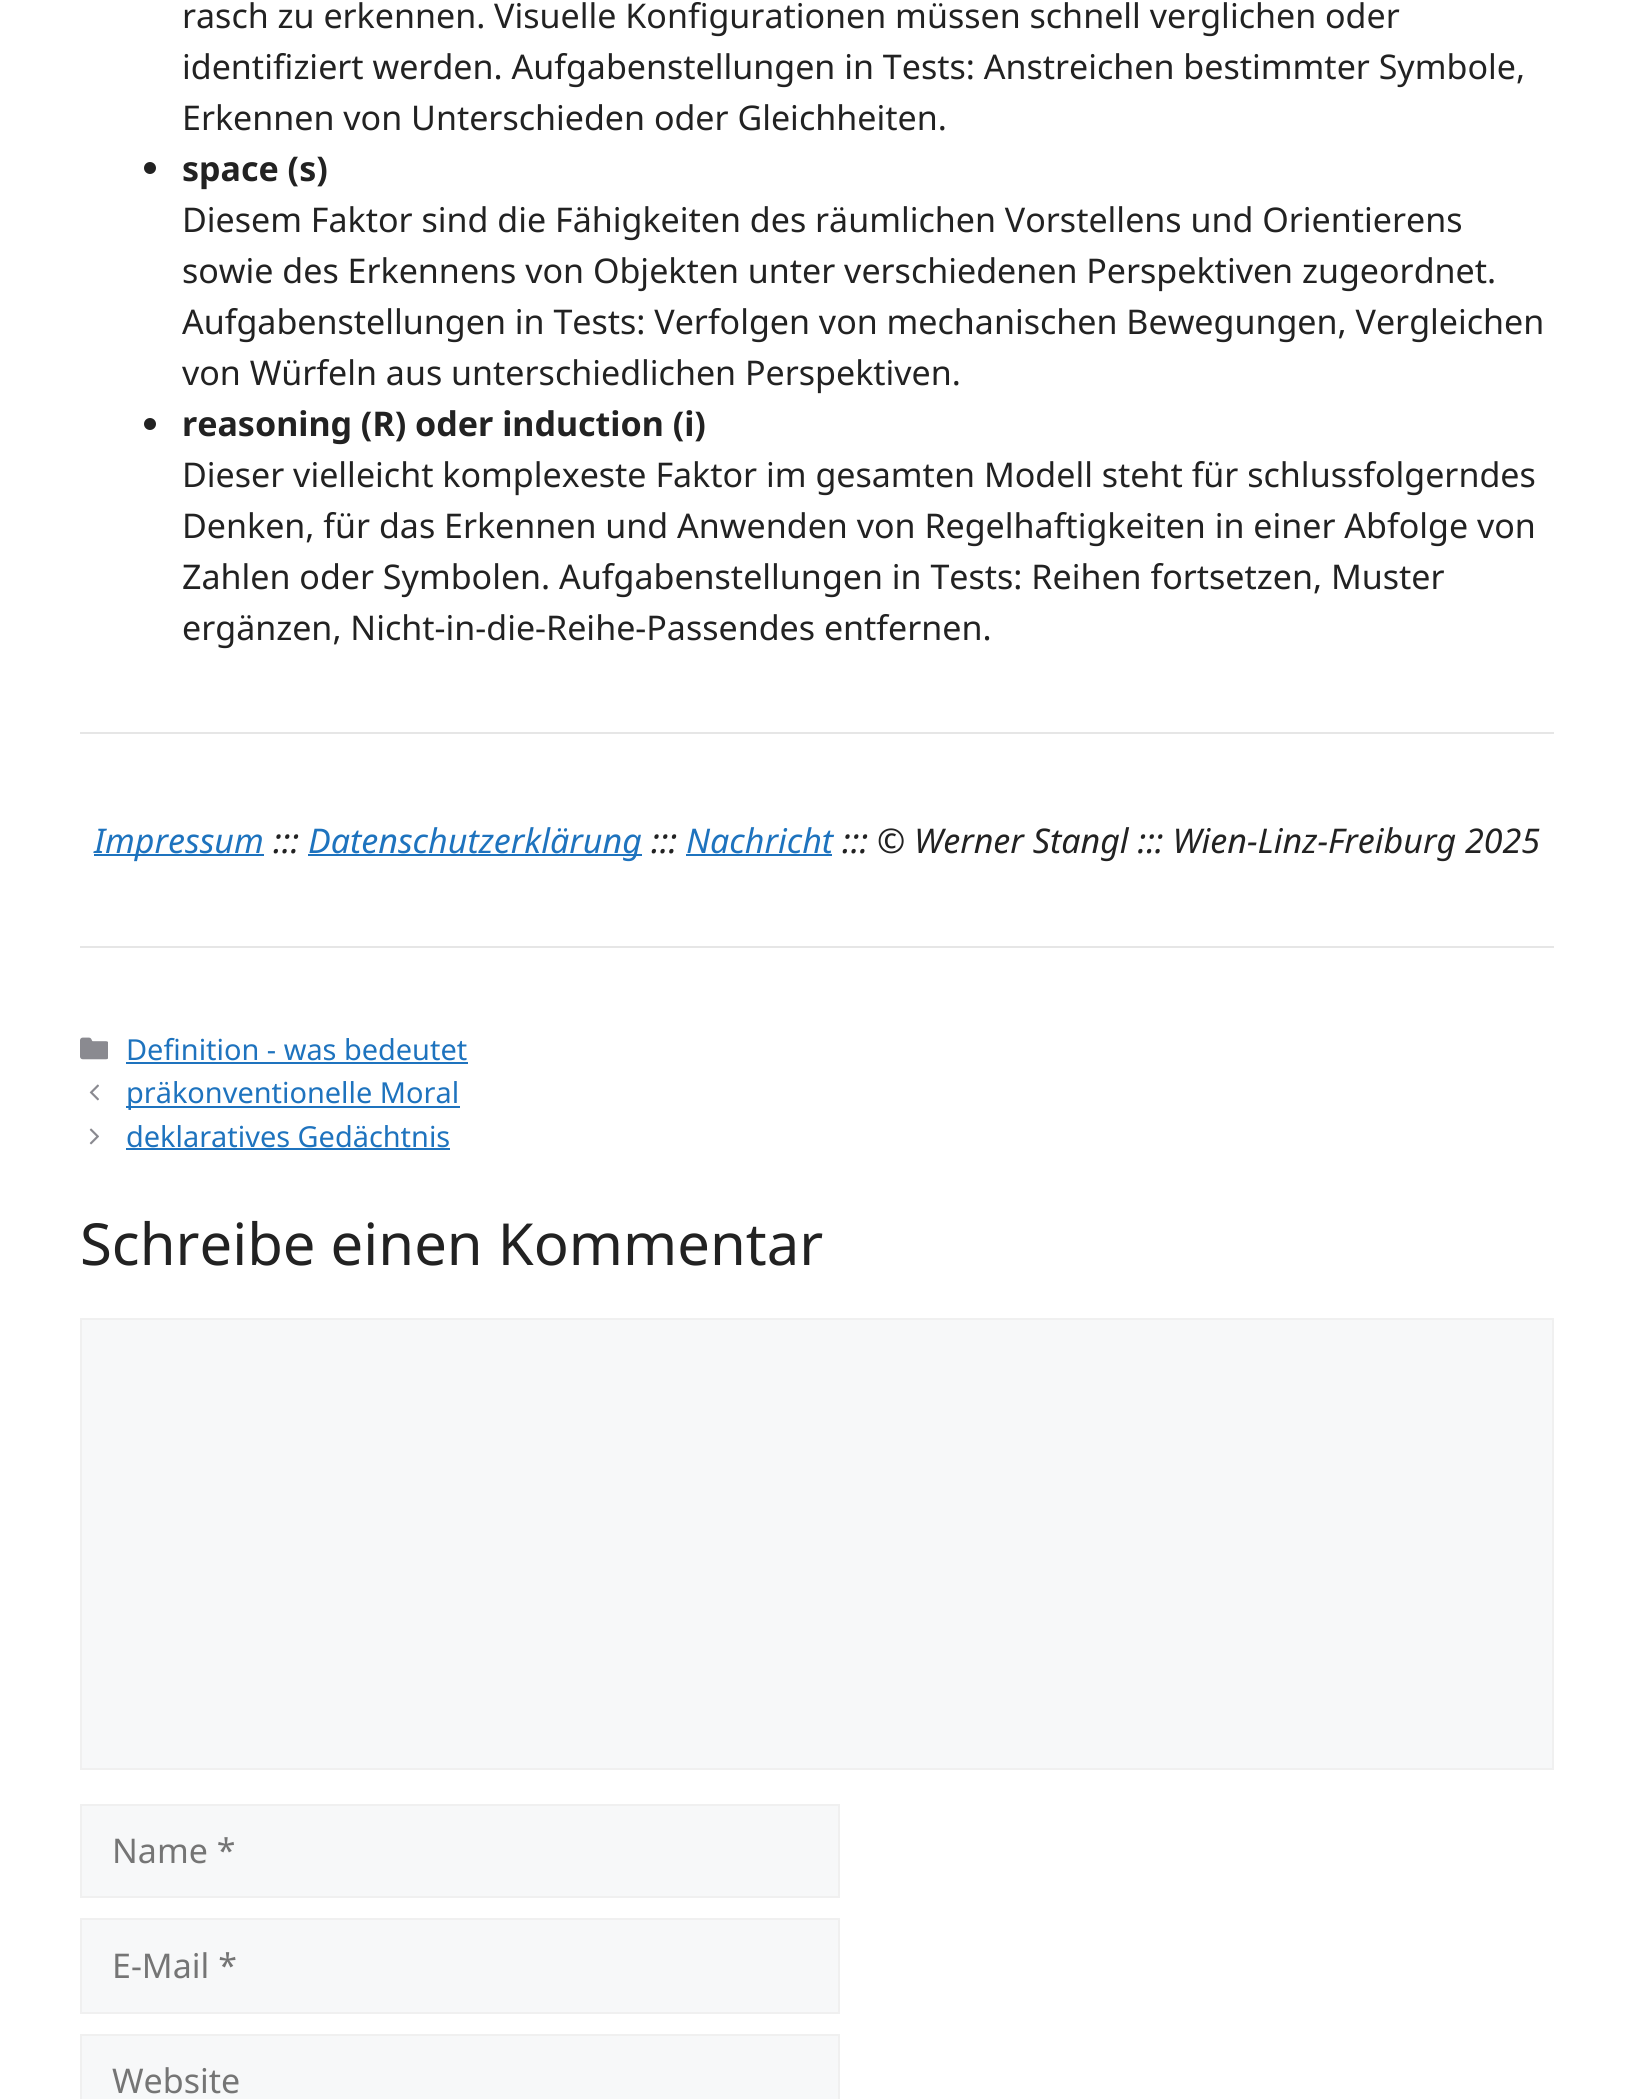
#include <cairo.h>
#include <math.h>
#include <stddef.h>

static cairo_t *c;
static void C(unsigned color){cairo_set_source_rgb(c, (color >> 16) / 255.0, (color >> 8 & 255) / 255.0, (color & 255) / 255.0);}
static void F(const char *family, double size, int italic, int bold){cairo_select_font_face(c, family, italic ? CAIRO_FONT_SLANT_ITALIC : CAIRO_FONT_SLANT_NORMAL,bold ? CAIRO_FONT_WEIGHT_BOLD : CAIRO_FONT_WEIGHT_NORMAL);cairo_set_font_size(c, size);}
static void T(double x, double y, const char *s){cairo_move_to(c, x, y);cairo_show_text(c, s);}
static void R(double x, double y, double w, double h){cairo_rectangle(c, x, y, w, h);cairo_fill(c);}
static void I(const char *path, double x, double y, double w, double h){cairo_surface_t *image = cairo_image_surface_create_from_png(path);cairo_save(c);cairo_set_source_surface(c, image, x, y);cairo_rectangle(c, x, y, w, h);cairo_fill(c);cairo_restore(c);cairo_surface_destroy(image);}
int main(void) {
cairo_surface_t *surface = cairo_image_surface_create(CAIRO_FORMAT_RGB24, 1633, 2099);
c = cairo_create(surface);
cairo_font_options_t *options = cairo_font_options_create();
cairo_font_options_set_hint_metrics(options, CAIRO_HINT_METRICS_OFF);
cairo_font_options_set_hint_style(options, CAIRO_HINT_STYLE_NONE);
cairo_set_font_options(c, options);
cairo_set_miter_limit(c, 4);
C(0xffffff);
cairo_paint(c);
F("Noto Sans",34,0,0);
C(0x222222);
T(182,28,"rasch zu erkennen. Visuelle Konfigurationen müssen schnell verglichen oder");
T(182,79,"identifiziert werden. Aufgabenstellungen in Tests: Anstreichen bestimmter Symbole,");
T(182,130,"Erkennen von Unterschieden oder Gleichheiten.");
cairo_new_path(c);
cairo_arc(c,150,168,6,0,2 * M_PI);
cairo_fill(c);
F("Noto Sans",34,0,1);
T(182,181,"space (s)");
F("Noto Sans",34,0,0);
T(182,232,"Diesem Faktor sind die Fähigkeiten des räumlichen Vorstellens und Orientierens");
T(182,283,"sowie des Erkennens von Objekten unter verschiedenen Perspektiven zugeordnet.");
T(182,334,"Aufgabenstellungen in Tests: Verfolgen von mechanischen Bewegungen, Vergleichen");
T(182,385,"von Würfeln aus unterschiedlichen Perspektiven.");
cairo_new_path(c);
cairo_arc(c,150,424,6,0,2 * M_PI);
cairo_fill(c);
F("Noto Sans",34,0,1);
T(182,436,"reasoning (R) oder induction (i)");
F("Noto Sans",34,0,0);
T(182,487,"Dieser vielleicht komplexeste Faktor im gesamten Modell steht für schlussfolgerndes");
T(182,538,"Denken, für das Erkennen und Anwenden von Regelhaftigkeiten in einer Abfolge von");
T(182,589,"Zahlen oder Symbolen. Aufgabenstellungen in Tests: Reihen fortsetzen, Muster");
T(182,640,"ergänzen, Nicht-in-die-Reihe-Passendes entfernen.");
C(0xe6e6e6);
R(80,732,1474,2);
C(0x1e73be);
R(94,854,170,2);
F("Noto Sans",34,1,0);
T(94,853,"Impressum");
C(0x222222);
T(273,853,":::");
C(0x1e73be);
R(308,854,334,2);
T(308,853,"Datenschutzerklärung");
C(0x222222);
T(651,853,":::");
C(0x1e73be);
T(686,853,"Nachricht");
R(686,854,146,2);
C(0x222222);
T(842,853,"::: © Werner Stangl ::: Wien-Linz-Freiburg 2025");
C(0xe6e6e6);
R(80,946,1474,2);
I("1.png",80,1037,28,23);
F("Noto Sans",28.9,0,0);
C(0x1e73be);
T(126,1060,"Definition - was bedeutet");
R(126,1062,342,2);
I("2.png",89,1084,10,17);
R(126,1106,334,2);
T(126,1103,"präkonventionelle Moral");
I("3.png",89,1128,10,17);
T(126,1147,"deklaratives Gedächtnis");
R(126,1148,324,2);
F("Noto Sans",58,0,0);
C(0x222222);
T(80,1265,"Schreibe einen Kommentar");
C(0xf7f8f9);
cairo_rectangle(c,81,1319,1472,450);
cairo_fill_preserve(c);
C(0xf0f0f0);
cairo_stroke(c);
C(0xf7f8f9);
cairo_rectangle(c,81,1805,758,92);
cairo_fill_preserve(c);
C(0xf0f0f0);
cairo_stroke(c);
F("Noto Sans",34,0,0);
C(0x757575);
T(112,1863,"Name *");
C(0xf7f8f9);
cairo_rectangle(c,81,1919,758,94);
cairo_fill_preserve(c);
C(0xf0f0f0);
cairo_stroke(c);
C(0x757575);
T(112,1978,"E-Mail *");
C(0xf7f8f9);
cairo_rectangle(c,81,2035,758,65);
cairo_fill_preserve(c);
C(0xf0f0f0);
cairo_stroke(c);
C(0x757575);
T(112,2093,"Website");
cairo_surface_write_to_png(surface, "o.png");
cairo_font_options_destroy(options);
cairo_destroy(c);
cairo_surface_destroy(surface);
return 0;
}
